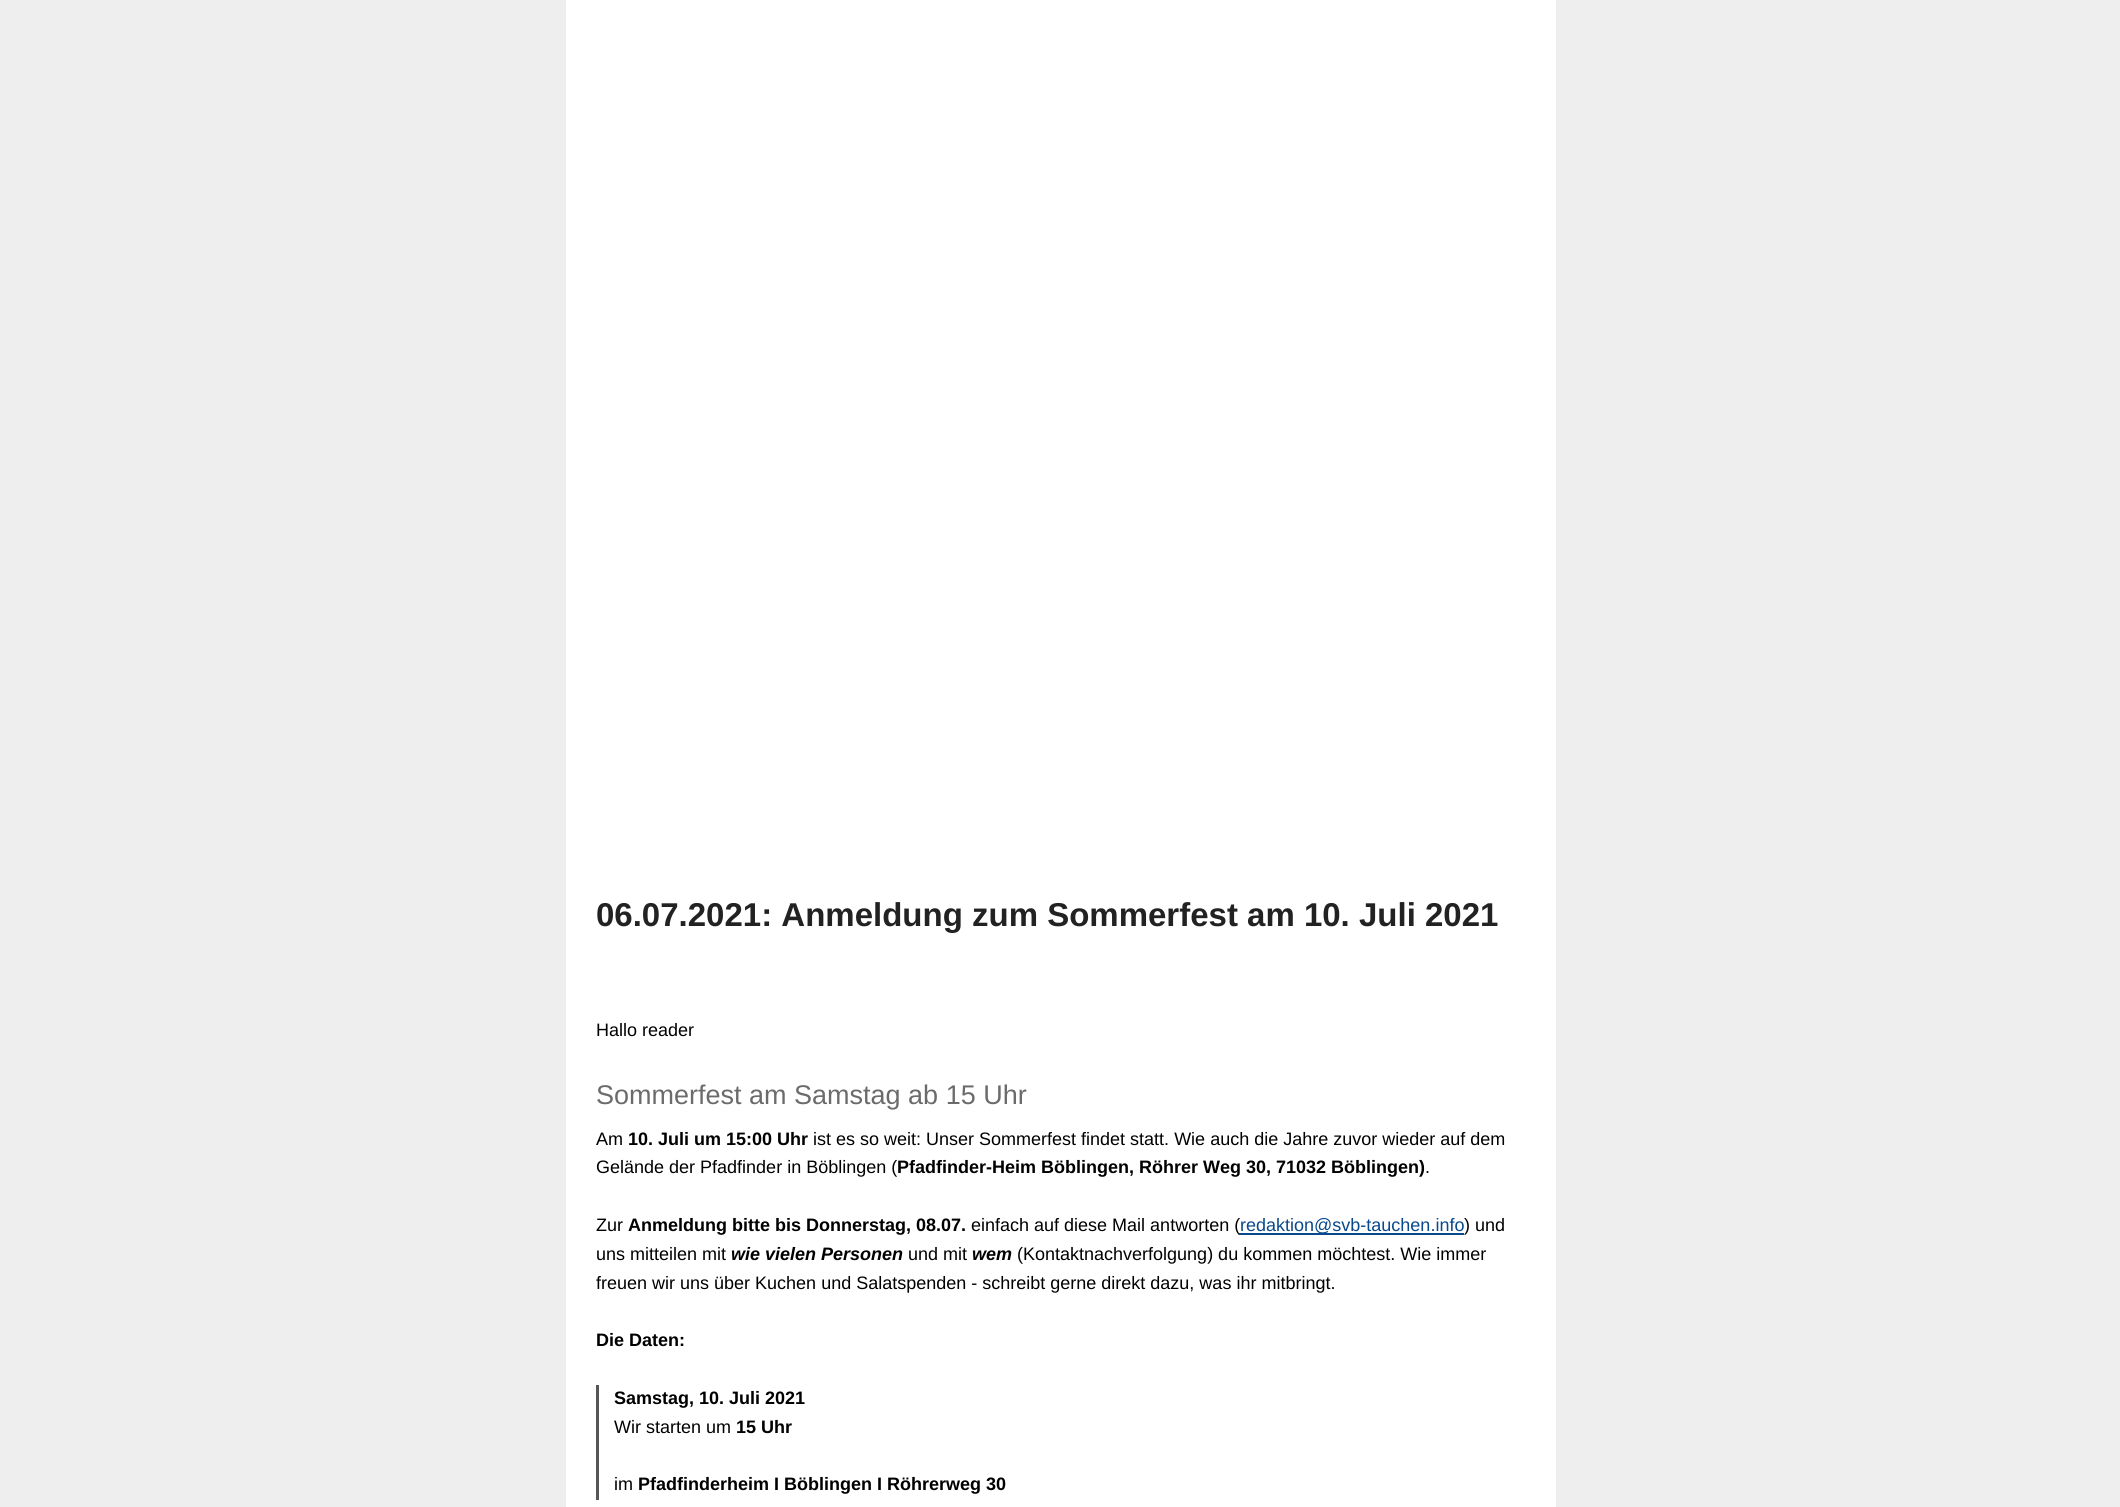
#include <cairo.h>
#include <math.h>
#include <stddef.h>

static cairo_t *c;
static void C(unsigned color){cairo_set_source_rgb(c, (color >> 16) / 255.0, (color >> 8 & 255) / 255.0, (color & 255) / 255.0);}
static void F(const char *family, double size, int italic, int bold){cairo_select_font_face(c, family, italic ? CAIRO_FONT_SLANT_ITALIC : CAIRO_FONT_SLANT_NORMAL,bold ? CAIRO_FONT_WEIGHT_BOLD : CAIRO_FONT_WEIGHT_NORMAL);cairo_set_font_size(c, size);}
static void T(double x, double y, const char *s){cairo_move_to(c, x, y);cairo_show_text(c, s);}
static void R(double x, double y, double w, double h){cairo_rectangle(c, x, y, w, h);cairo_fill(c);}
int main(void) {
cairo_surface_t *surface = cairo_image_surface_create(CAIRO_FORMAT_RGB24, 2120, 1507);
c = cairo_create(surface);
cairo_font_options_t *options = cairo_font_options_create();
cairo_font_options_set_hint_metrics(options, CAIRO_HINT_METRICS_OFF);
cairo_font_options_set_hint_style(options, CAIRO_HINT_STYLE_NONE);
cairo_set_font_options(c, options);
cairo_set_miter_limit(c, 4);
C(0xeeeeee);
cairo_paint(c);
C(0xffffff);
R(566,0,990,1507);
F("Liberation Sans",33,0,1);
C(0x222222);
T(596,926,"06.07.2021: Anmeldung zum Sommerfest am 10. Juli 2021");
F("Liberation Sans",18,0,0);
C(0x000000);
T(596,1036,"Hallo reader");
F("Liberation Sans",27,0,0);
C(0x6b6b6b);
T(596,1104,"Sommerfest am Samstag ab 15 Uhr");
F("Liberation Sans",18,0,0);
C(0x000000);
T(596,1145,"Am");
F("Liberation Sans",18,0,1);
T(628,1145,"10. Juli um 15:00 Uhr");
F("Liberation Sans",18,0,0);
T(813,1145,"ist es so weit: Unser Sommerfest findet statt. Wie auch die Jahre zuvor wieder auf dem");
T(596,1173,"Gelände der Pfadfinder in Böblingen (");
F("Liberation Sans",18,0,1);
T(897,1173,"Pfadfinder-Heim Böblingen, Röhrer Weg 30, 71032 Böblingen)");
F("Liberation Sans",18,0,0);
T(1425,1173,".");
T(596,1231,"Zur");
F("Liberation Sans",18,0,1);
T(628,1231,"Anmeldung bitte bis Donnerstag, 08.07.");
F("Liberation Sans",18,0,0);
T(971,1231,"einfach auf diese Mail antworten (");
C(0x07498c);
R(1239,1233,225,2);
T(1240,1231,"redaktion@svb-tauchen.info");
C(0x000000);
T(1464,1231,") und");
T(596,1260,"uns mitteilen mit");
F("Liberation Sans",18,1,1);
T(731,1260,"wie vielen Personen");
F("Liberation Sans",18,0,0);
T(908,1260,"und mit");
F("Liberation Sans",18,1,1);
T(972,1260,"wem");
F("Liberation Sans",18,0,0);
T(1017,1260,"(Kontaktnachverfolgung) du kommen möchtest. Wie immer");
T(596,1289,"freuen wir uns über Kuchen und Salatspenden - schreibt gerne direkt dazu, was ihr mitbringt.");
F("Liberation Sans",18,0,1);
T(596,1346,"Die Daten:");
C(0x565656);
R(596,1385,3,115);
C(0x000000);
T(614,1404,"Samstag, 10. Juli 2021");
F("Liberation Sans",18,0,0);
T(614,1433,"Wir starten um");
F("Liberation Sans",18,0,1);
T(736,1433,"15 Uhr");
F("Liberation Sans",18,0,0);
T(614,1490,"im");
F("Liberation Sans",18,0,1);
T(638,1490,"Pfadfinderheim I Böblingen I Röhrerweg 30");
cairo_surface_write_to_png(surface, "o.png");
cairo_font_options_destroy(options);
cairo_destroy(c);
cairo_surface_destroy(surface);
return 0;
}
